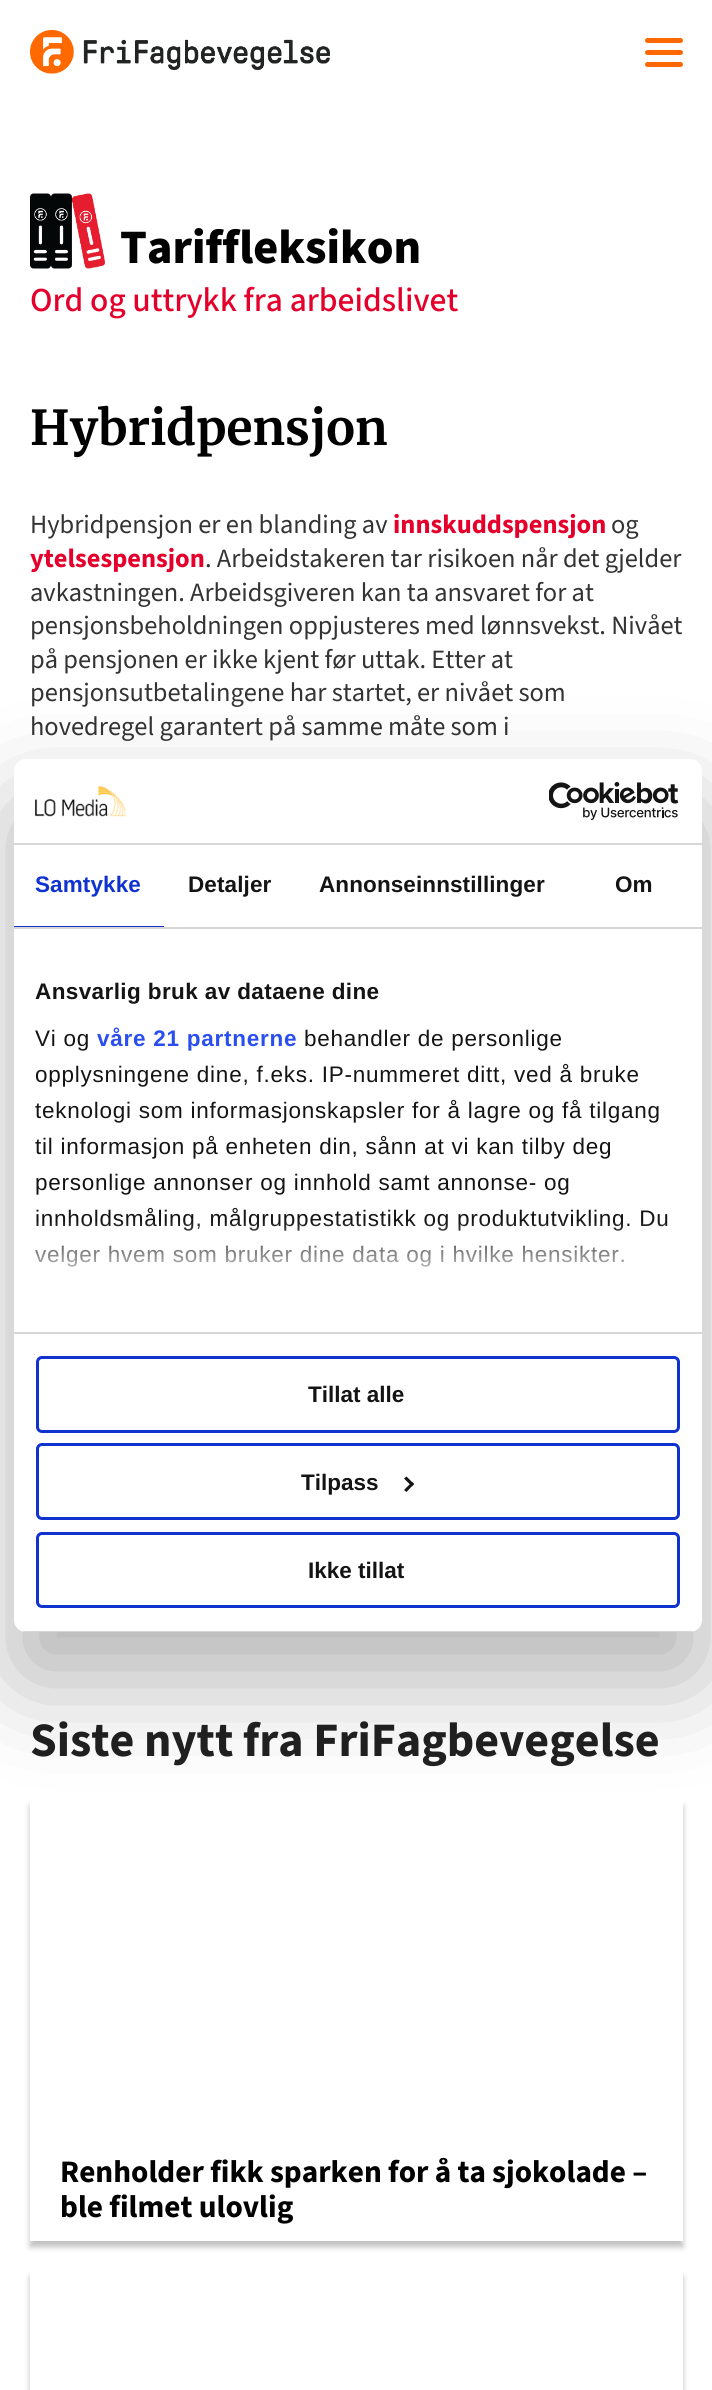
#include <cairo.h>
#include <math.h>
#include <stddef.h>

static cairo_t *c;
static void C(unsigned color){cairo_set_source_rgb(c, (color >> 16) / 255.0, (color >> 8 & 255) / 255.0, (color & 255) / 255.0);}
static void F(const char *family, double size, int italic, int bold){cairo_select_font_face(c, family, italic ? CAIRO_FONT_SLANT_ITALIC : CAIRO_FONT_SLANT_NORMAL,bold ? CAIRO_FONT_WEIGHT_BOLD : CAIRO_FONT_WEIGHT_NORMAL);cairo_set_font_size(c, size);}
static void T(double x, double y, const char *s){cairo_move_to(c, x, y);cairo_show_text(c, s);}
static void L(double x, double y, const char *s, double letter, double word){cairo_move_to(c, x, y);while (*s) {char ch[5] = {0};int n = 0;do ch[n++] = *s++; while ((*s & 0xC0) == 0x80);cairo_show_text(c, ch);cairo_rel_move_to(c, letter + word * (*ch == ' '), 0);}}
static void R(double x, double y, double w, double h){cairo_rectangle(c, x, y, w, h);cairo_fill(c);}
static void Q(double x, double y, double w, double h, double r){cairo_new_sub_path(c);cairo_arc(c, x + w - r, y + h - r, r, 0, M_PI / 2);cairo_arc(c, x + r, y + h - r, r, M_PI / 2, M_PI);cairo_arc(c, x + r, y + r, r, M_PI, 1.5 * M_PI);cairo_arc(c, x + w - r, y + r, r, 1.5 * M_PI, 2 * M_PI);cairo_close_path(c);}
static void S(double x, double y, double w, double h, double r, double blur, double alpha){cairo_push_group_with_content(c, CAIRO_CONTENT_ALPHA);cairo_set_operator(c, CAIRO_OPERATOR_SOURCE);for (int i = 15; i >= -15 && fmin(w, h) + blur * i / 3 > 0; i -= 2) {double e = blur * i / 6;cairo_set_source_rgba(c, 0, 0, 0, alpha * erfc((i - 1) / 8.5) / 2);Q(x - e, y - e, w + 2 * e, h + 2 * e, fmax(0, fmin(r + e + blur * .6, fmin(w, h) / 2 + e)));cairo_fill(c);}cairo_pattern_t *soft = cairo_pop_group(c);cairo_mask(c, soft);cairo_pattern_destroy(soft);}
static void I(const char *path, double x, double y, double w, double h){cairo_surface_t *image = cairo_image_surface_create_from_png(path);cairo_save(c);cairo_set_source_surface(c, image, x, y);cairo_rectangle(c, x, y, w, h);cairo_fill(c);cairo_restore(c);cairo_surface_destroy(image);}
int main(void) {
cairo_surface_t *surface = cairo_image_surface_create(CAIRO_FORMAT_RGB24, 712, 2390);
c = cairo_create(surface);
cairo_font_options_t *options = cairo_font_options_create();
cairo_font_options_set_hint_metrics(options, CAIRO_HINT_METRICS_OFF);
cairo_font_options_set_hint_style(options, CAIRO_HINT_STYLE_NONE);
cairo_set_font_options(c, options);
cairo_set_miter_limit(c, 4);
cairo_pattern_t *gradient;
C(0xffffff);
cairo_paint(c);
I("1.png",30,30,300,44);
C(0xff6900);
Q(645,38,38,5,2.5);
cairo_fill(c);
Q(645,50,38,5,2.5);
cairo_fill(c);
Q(645,62,38,5,2.5);
cairo_fill(c);
I("2.png",30,193,75,76);
F("Source Sans 3 ExtraBold",48,0,0);
C(0x000000);
T(120,263,"Tariffleksikon");
F("Source Sans 3 Medium",33.6,0,0);
C(0xe4002b);
T(30,311,"Ord og uttrykk fra arbeidslivet");
F("Merriweather",48,0,1);
C(0x000000);
T(30,445,"Hybridpensjon");
F("Source Sans 3",26.4,0,0);
C(0x333333);
T(30,533,"Hybridpensjon er en blanding av");
F("Source Sans 3",26.4,0,1);
C(0xe4002b);
T(393,533,"innskuddspensjon");
F("Source Sans 3",26.4,0,0);
C(0x333333);
T(611,533,"og");
F("Source Sans 3",26.4,0,1);
C(0xe4002b);
T(30,567,"ytelsespensjon");
F("Source Sans 3",26.4,0,0);
C(0x333333);
T(205,567,". Arbeidstakeren tar risikoen når det gjelder");
T(30,601,"avkastningen. Arbeidsgiveren kan ta ansvaret for at");
T(30,634,"pensjonsbeholdningen oppjusteres med lønnsvekst. Nivået");
T(30,668,"på pensjonen er ikke kjent før uttak. Etter at");
T(30,701,"pensjonsutbetalingene har startet, er nivået som");
T(30,735,"hovedregel garantert på samme måte som i");
F("Source Sans 3",48,0,1);
C(0x212121);
T(30,1756,"Siste nytt fra FriFagbevegelse");
cairo_save(c);
cairo_set_fill_rule(c,CAIRO_FILL_RULE_EVEN_ODD);
cairo_new_path(c);
cairo_move_to(c,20,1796);
cairo_line_to(c,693,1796);
cairo_line_to(c,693,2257);
cairo_line_to(c,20,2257);
cairo_close_path(c);
cairo_move_to(c,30,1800);
cairo_line_to(c,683,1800);
cairo_line_to(c,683,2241);
cairo_line_to(c,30,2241);
cairo_close_path(c);
cairo_clip(c);
C(0x000000);
S(30,1806,653,441,0,3,.25);
cairo_restore(c);
F("Source Sans 3",31.25,0,1);
C(0x000000);
T(60,2182,"Renholder fikk sparken for å ta sjokolade –");
T(60,2217,"ble filmet ulovlig");
cairo_save(c);
cairo_set_fill_rule(c,CAIRO_FILL_RULE_EVEN_ODD);
cairo_new_path(c);
cairo_move_to(c,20,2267);
cairo_line_to(c,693,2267);
cairo_line_to(c,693,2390);
cairo_line_to(c,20,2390);
cairo_close_path(c);
cairo_move_to(c,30,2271);
cairo_line_to(c,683,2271);
cairo_line_to(c,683,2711);
cairo_line_to(c,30,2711);
cairo_close_path(c);
cairo_clip(c);
C(0x000000);
S(30,2277,653,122,0,3,.25);
cairo_restore(c);
C(0x000000);
S(14,807,688,873,12,51,.3);
C(0xffffff);
Q(14,759,688,873,12);
cairo_fill(c);
C(0xd6d6d6);
R(14,843,688,2);
I("3.png",35,786,91,31);
I("4.png",549,782,130,38);
R(14,927,688,2);
C(0x1032cf);
R(14,926,150,1);
F("Liberation Sans",22.5,0,1);
L(35,892,"Samtykke",.1,0);
C(0x141414);
L(188,892,"Detaljer",.1,0);
L(319,892,"Annonseinnstillinger",.1,0);
L(615,892,"Om",.1,0);
C(0xd6d6d6);
R(14,1332,688,2);
C(0x141414);
L(35,999,"Ansvarlig bruk av dataene dine",.4,0);
F("Liberation Sans",22.5,0,0);
L(35,1046,"Vi og",.75,0);
F("Liberation Sans",22.5,0,1);
C(0x2a4eef);
L(97,1046,"våre 21 partnerne",.75,0);
F("Liberation Sans",22.5,0,0);
C(0x141414);
L(304,1046,"behandler de personlige",.75,0);
L(35,1082,"opplysningene dine, f.eks. IP-nummeret ditt, ved å bruke",.75,0);
L(35,1118,"teknologi som informasjonskapsler for å lagre og få tilgang",.75,0);
L(35,1154,"til informasjon på enheten din, sånn at vi kan tilby deg",.75,0);
L(35,1190,"personlige annonser og innhold samt annonse- og",.75,0);
L(35,1226,"innholdsmåling, målgruppestatistikk og produktutvikling. Du",.75,0);
L(35,1262,"velger hvem som bruker dine data og i hvilke hensikter.",.75,0);
gradient = cairo_pattern_create_linear(347,1332,347,1220);
cairo_pattern_add_color_stop_rgba(gradient,0,1,1,1,1);
cairo_pattern_add_color_stop_rgba(gradient,.5,1,1,1,.8);
cairo_pattern_add_color_stop_rgba(gradient,1,1,1,1,0);
cairo_set_source(c,gradient);
cairo_pattern_destroy(gradient);
R(34,1222,633,45);
cairo_save(c);
Q(14,759,688,873,12);
cairo_clip(c);
C(0xd6d6d6);
R(14,1631,688,1);
cairo_restore(c);
Q(37.5,1357.5,641,74,4.5);
C(0x1032cf);
cairo_set_line_width(c,3);
cairo_stroke(c);
F("Liberation Sans",22.5,0,1);
C(0x141414);
T(308,1402,"Tillat alle");
Q(37.5,1444.5,641,74,4.5);
C(0x1032cf);
cairo_stroke(c);
C(0x141414);
T(301,1490,"Tilpass");
cairo_new_path(c);
cairo_move_to(c,406.5,1476.5);
cairo_line_to(c,414,1484);
cairo_line_to(c,412,1486.5);
cairo_line_to(c,404,1478.5);
cairo_close_path(c);
cairo_fill(c);
cairo_new_path(c);
cairo_move_to(c,412,1482);
cairo_line_to(c,414,1484);
cairo_line_to(c,406.5,1492);
cairo_line_to(c,404,1490);
cairo_close_path(c);
cairo_fill(c);
Q(37.5,1533.5,641,73,4.5);
C(0x1032cf);
cairo_stroke(c);
C(0x141414);
T(308,1578,"Ikke tillat");
cairo_surface_write_to_png(surface, "o.png");
cairo_font_options_destroy(options);
cairo_destroy(c);
cairo_surface_destroy(surface);
return 0;
}
